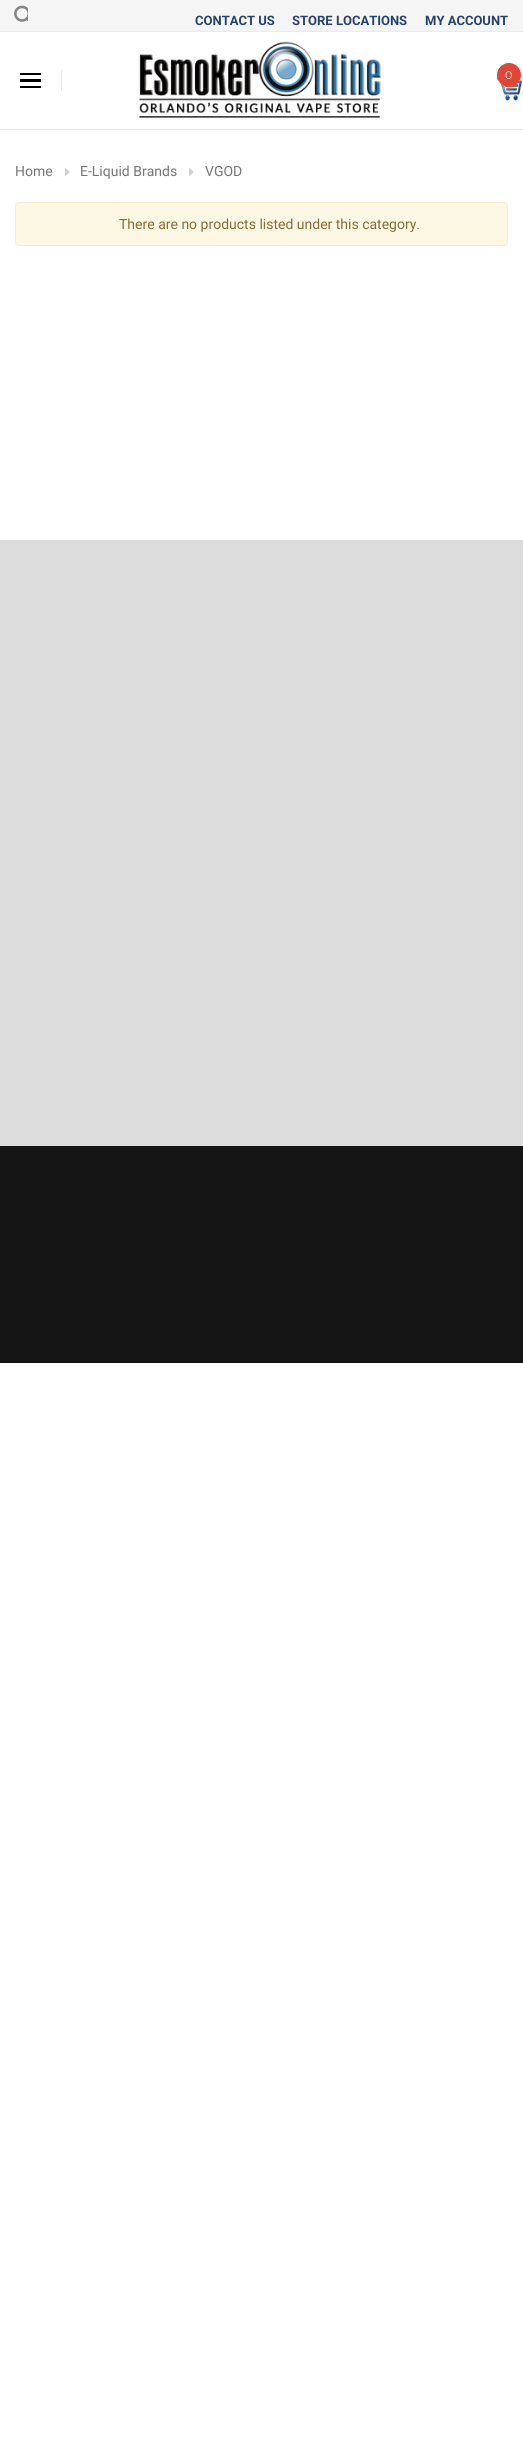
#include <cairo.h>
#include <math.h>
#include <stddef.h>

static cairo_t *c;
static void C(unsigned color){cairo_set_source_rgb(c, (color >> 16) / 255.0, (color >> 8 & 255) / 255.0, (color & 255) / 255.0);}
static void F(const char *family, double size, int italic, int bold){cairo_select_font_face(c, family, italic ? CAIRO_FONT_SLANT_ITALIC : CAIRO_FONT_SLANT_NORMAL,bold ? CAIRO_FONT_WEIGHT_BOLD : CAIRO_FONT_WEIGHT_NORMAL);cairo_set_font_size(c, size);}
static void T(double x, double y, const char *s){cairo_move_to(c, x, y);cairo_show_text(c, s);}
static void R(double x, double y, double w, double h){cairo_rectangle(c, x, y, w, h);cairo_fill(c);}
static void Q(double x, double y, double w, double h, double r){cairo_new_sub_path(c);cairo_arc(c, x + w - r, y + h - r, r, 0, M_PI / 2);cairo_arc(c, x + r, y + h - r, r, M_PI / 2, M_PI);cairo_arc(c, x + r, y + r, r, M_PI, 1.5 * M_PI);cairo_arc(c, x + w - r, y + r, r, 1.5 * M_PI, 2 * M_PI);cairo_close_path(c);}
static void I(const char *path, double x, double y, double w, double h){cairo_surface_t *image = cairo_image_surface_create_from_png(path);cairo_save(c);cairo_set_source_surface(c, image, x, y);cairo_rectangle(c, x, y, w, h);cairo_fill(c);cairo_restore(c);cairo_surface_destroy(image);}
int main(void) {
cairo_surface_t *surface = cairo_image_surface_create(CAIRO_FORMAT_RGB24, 523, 2444);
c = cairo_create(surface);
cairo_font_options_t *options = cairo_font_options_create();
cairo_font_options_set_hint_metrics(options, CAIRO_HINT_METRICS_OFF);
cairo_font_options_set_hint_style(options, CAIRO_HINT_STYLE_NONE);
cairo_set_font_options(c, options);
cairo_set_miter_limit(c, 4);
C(0xffffff);
cairo_paint(c);
C(0xf5f5f5);
R(0,0,523,31);
C(0xebebeb);
R(0,31,523,1);
I("1.png",14,5,14,17);
F("Roboto",13,0,1);
C(0x264273);
T(195,25,"CONTACT US");
T(292,25,"STORE LOCATIONS");
T(425,25,"MY ACCOUNT");
C(0xebebeb);
R(0,129,523,1);
R(61,70,1,21);
C(0x000000);
R(20,73,21,2);
R(20,86,21,2);
R(20,79,21,3);
I("2.png",139,41,243,77);
I("3.png",497,77,25,24);
C(0xe04633);
cairo_arc(c,509,75,12,0,2 * M_PI);
cairo_fill(c);
F("Montserrat",11,0,0);
C(0xffffff);
T(505,79,"0");
F("Roboto",14,0,0);
C(0x787878);
T(15,176,"Home");
I("4.png",65,168,5,8);
T(80,176,"E-Liquid Brands");
I("4.png",189,168,5,8);
T(205,176,"VGOD");
C(0xfcf8e3);
Q(15.5,202.5,492,43,3.5);
cairo_fill_preserve(c);
C(0xfaebcc);
cairo_set_line_width(c,1);
cairo_stroke(c);
C(0x8a6d3b);
T(119,229,"There are no products listed under this category.");
C(0xdcdcdc);
R(0,540,523,606);
C(0x141414);
R(0,1146,523,217);
cairo_surface_write_to_png(surface, "o.png");
cairo_font_options_destroy(options);
cairo_destroy(c);
cairo_surface_destroy(surface);
return 0;
}
